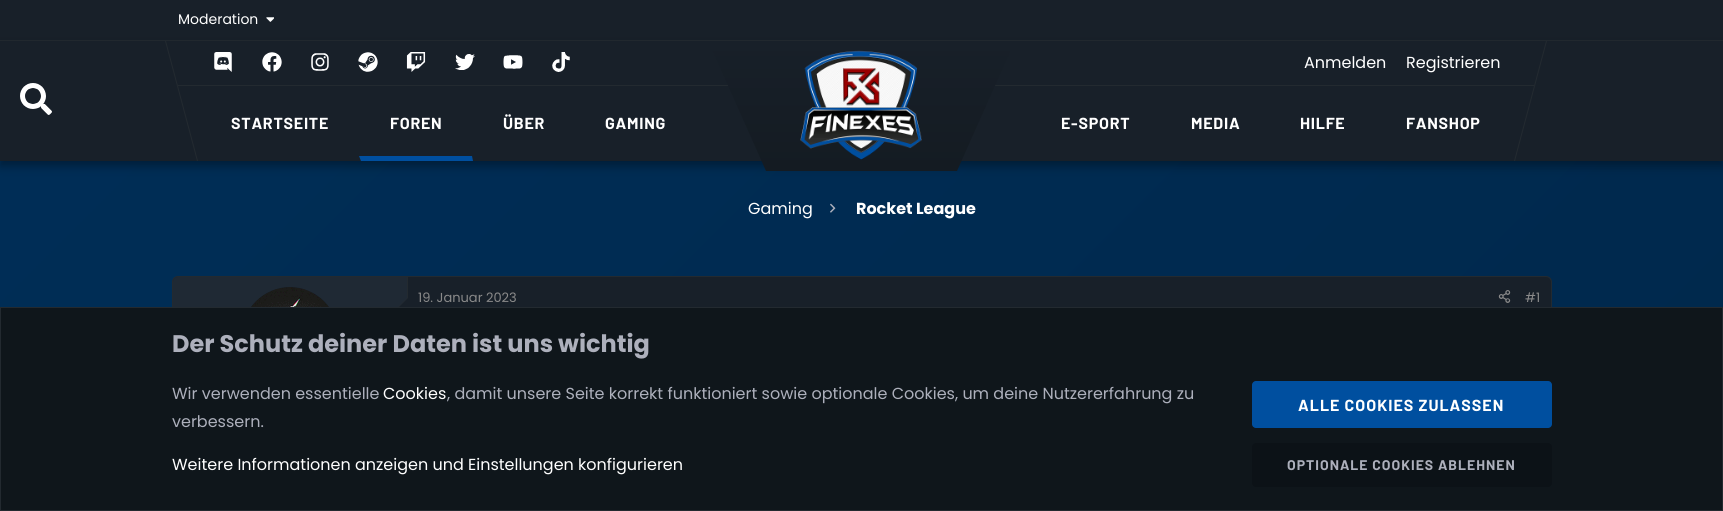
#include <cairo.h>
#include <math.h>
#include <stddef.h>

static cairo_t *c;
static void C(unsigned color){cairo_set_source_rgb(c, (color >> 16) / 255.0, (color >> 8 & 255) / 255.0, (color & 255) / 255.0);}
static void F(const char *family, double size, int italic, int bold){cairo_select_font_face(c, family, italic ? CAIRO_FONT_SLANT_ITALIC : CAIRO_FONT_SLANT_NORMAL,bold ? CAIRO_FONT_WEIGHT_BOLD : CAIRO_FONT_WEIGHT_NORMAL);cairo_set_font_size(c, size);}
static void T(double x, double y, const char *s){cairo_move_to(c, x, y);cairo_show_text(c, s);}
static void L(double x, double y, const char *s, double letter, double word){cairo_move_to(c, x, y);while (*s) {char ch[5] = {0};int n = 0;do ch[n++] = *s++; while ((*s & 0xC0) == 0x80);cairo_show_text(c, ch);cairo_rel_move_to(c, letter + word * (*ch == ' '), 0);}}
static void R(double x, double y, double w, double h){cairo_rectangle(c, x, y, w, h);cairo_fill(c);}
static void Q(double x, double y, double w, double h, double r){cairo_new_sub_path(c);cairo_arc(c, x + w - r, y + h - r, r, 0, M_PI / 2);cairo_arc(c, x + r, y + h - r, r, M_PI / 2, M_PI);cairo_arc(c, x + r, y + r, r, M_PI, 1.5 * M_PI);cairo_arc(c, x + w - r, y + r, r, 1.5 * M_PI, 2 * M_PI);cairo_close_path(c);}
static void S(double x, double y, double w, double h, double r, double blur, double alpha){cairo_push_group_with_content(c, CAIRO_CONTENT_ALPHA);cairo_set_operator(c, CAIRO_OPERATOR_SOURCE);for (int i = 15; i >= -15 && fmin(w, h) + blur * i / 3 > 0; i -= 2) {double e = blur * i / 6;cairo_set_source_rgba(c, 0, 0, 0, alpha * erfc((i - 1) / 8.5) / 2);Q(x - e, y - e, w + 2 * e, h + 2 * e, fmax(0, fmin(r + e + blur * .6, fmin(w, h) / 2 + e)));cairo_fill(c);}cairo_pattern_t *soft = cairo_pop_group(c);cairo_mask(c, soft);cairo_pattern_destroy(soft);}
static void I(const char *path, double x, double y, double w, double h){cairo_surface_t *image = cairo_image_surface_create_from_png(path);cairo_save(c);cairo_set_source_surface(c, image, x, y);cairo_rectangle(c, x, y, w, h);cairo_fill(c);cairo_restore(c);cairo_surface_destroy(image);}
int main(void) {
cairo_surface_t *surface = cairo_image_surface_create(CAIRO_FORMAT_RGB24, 1723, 511);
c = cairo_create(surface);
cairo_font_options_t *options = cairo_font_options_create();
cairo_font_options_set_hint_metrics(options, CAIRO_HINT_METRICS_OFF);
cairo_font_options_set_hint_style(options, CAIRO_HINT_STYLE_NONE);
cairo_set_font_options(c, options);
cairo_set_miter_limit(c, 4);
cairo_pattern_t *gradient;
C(0xffffff);
cairo_paint(c);
gradient = cairo_pattern_create_linear(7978,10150,-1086,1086);
cairo_pattern_add_color_stop_rgba(gradient,0,0,0,0,1);
cairo_pattern_add_color_stop_rgba(gradient,1,0,0.18,0.341,1);
cairo_set_source(c,gradient);
cairo_pattern_destroy(gradient);
R(0,161,1723,146);
C(0x182029);
R(0,0,1723,40);
C(0x232a30);
R(0,40,1723,1);
F("Poppins",14,0,0);
C(0xffffff);
T(178,24,"Moderation");
I("1.png",266,17,8,5);
C(0x182029);
R(0,41,1723,120);
cairo_save(c);
cairo_set_fill_rule(c,CAIRO_FILL_RULE_EVEN_ODD);
cairo_new_path(c);
cairo_move_to(c,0,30);
cairo_line_to(c,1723,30);
cairo_line_to(c,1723,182);
cairo_line_to(c,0,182);
cairo_close_path(c);
cairo_move_to(c,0,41);
cairo_line_to(c,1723,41);
cairo_line_to(c,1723,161);
cairo_line_to(c,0,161);
cairo_close_path(c);
cairo_clip(c);
C(0x000000);
S(0,46,1723,120,0,5,.35);
cairo_restore(c);
I("2.png",20,83,32,32);
C(0x232a30);
cairo_new_path(c);
cairo_move_to(c,165,41);
cairo_line_to(c,166,41);
cairo_line_to(c,198,161);
cairo_line_to(c,197,161);
cairo_close_path(c);
cairo_fill(c);
R(178,85,551,1);
I("3.png",214,52,18,20);
I("4.png",262,52,20,20);
I("5.png",311,53,18,18);
I("6.png",358,52,20,20);
I("7.png",406,52,20,20);
I("8.png",455,54,20,16);
I("9.png",503,55,20,14);
I("10.png",552,52,18,20);
F("Barlow",16,0,1);
C(0xffffff);
L(231,129,"STARTSEITE",.75,0);
L(390,129,"FOREN",.75,0);
C(0x004f9f);
cairo_new_path(c);
cairo_move_to(c,359,156);
cairo_line_to(c,472,156);
cairo_line_to(c,473,161);
cairo_line_to(c,361,161);
cairo_close_path(c);
cairo_fill(c);
C(0xffffff);
L(503,129,"ÜBER",.75,0);
L(605,129,"GAMING",.75,0);
C(0x232a30);
cairo_new_path(c);
cairo_move_to(c,1546,41);
cairo_line_to(c,1547,41);
cairo_line_to(c,1515,161);
cairo_line_to(c,1514,161);
cairo_close_path(c);
cairo_fill(c);
R(989,85,545,1);
gradient = cairo_pattern_create_linear(862,41,862,171);
cairo_pattern_add_color_stop_rgba(gradient,0,0.094,0.125,0.161,1);
cairo_pattern_add_color_stop_rgba(gradient,1,0.078,0.106,0.133,1);
cairo_set_source(c,gradient);
cairo_pattern_destroy(gradient);
cairo_new_path(c);
cairo_move_to(c,709,41);
cairo_line_to(c,1015,41);
cairo_line_to(c,957,171);
cairo_line_to(c,766,171);
cairo_line_to(c,709,43);
cairo_close_path(c);
cairo_fill(c);
I("11.png",800,50,122,110);
F("Poppins",16,0,0);
C(0xffffff);
T(1304,68,"Anmelden");
T(1406,68,"Registrieren");
F("Barlow",16,0,1);
L(1061,129,"E-SPORT",.75,0);
L(1191,129,"MEDIA",.75,0);
L(1300,129,"HILFE",.75,0);
L(1406,129,"FANSHOP",.75,0);
F("Poppins",16,0,0);
T(748,214,"Gaming");
I("12.png",830,203,6,10);
F("Poppins",16,0,1);
T(856,214,"Rocket League");
C(0x182029);
Q(172.5,276.5,1379,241,5.5);
cairo_fill_preserve(c);
C(0x232a30);
cairo_set_line_width(c,1);
cairo_stroke(c);
C(0x1f2934);
cairo_new_path(c);
cairo_move_to(c,178,277);
cairo_line_to(c,408,277);
cairo_line_to(c,408,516);
cairo_line_to(c,178,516);
cairo_curve_to(c,175,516,173,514,173,511);
cairo_line_to(c,173,282);
cairo_curve_to(c,173,279,175,277,178,277);
cairo_close_path(c);
cairo_fill(c);
C(0x232a30);
R(407,277,1,21);
C(0x182029);
cairo_arc(c,290,335,48,0,2 * M_PI);
cairo_fill(c);
I("13.png",251,287,78,20);
C(0x232a30);
cairo_new_path(c);
cairo_move_to(c,408,297);
cairo_line_to(c,408,317);
cairo_line_to(c,398,307);
cairo_close_path(c);
cairo_fill(c);
C(0x182029);
cairo_new_path(c);
cairo_move_to(c,408,298);
cairo_line_to(c,408,316);
cairo_line_to(c,399,307);
cairo_close_path(c);
cairo_fill(c);
F("Poppins",13,0,0);
C(0x8a8a8a);
T(418,302,"19. Januar 2023");
I("14.png",1498,290,13,13);
T(1525,302,"#1");
C(0x0f161b);
cairo_rectangle(c,.5,307.5,1722,203);
cairo_fill_preserve(c);
C(0x232a30);
cairo_stroke(c);
F("Poppins",24,0,1);
C(0xadb0bc);
T(172,352,"Der Schutz deiner Daten ist uns wichtig");
F("Poppins",16,0,0);
T(172,399,"Wir verwenden essentielle");
C(0xffffff);
T(383,399,"Cookies");
C(0xadb0bc);
T(447,399,", damit unsere Seite korrekt funktioniert sowie optionale Cookies, um deine Nutzererfahrung zu");
T(172,427,"verbessern.");
C(0xffffff);
T(172,470,"Weitere Informationen anzeigen und Einstellungen konfigurieren");
C(0x004f9f);
Q(1252,381,300,47,4);
cairo_fill(c);
F("Barlow",16,0,1);
C(0xffffff);
L(1298,411,"ALLE COOKIES ZULASSEN",1,0);
C(0x0c1217);
Q(1252,443,300,44,4);
cairo_fill(c);
F("Barlow",14,0,1);
C(0xadb0bc);
L(1287,470,"OPTIONALE COOKIES ABLEHNEN",1,0);
cairo_surface_write_to_png(surface, "o.png");
cairo_font_options_destroy(options);
cairo_destroy(c);
cairo_surface_destroy(surface);
return 0;
}
